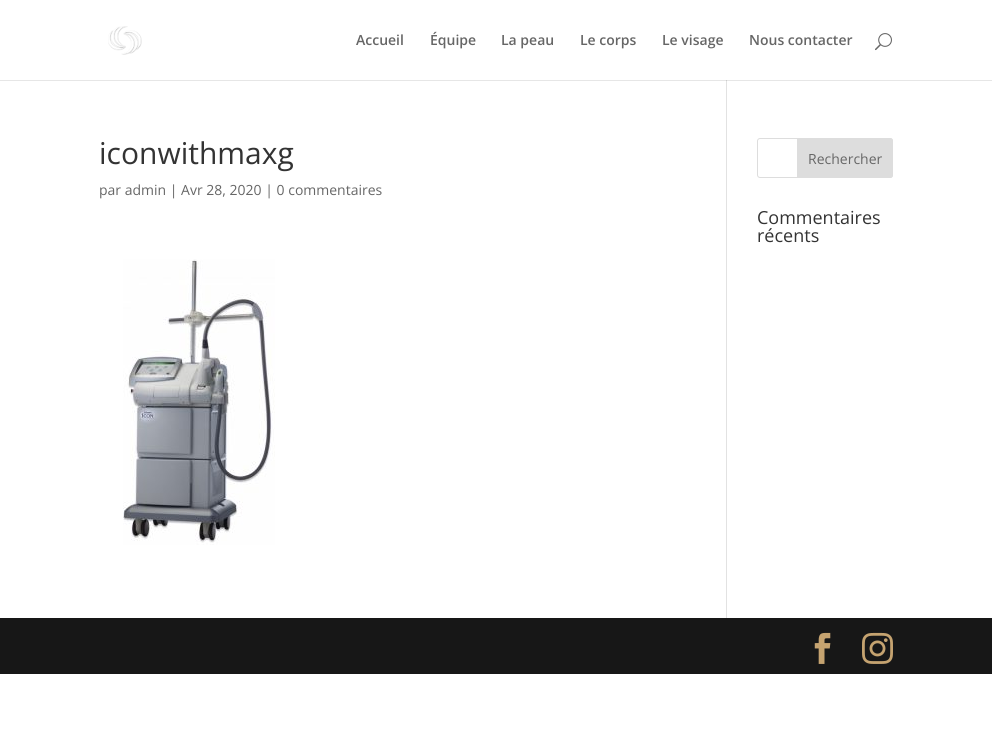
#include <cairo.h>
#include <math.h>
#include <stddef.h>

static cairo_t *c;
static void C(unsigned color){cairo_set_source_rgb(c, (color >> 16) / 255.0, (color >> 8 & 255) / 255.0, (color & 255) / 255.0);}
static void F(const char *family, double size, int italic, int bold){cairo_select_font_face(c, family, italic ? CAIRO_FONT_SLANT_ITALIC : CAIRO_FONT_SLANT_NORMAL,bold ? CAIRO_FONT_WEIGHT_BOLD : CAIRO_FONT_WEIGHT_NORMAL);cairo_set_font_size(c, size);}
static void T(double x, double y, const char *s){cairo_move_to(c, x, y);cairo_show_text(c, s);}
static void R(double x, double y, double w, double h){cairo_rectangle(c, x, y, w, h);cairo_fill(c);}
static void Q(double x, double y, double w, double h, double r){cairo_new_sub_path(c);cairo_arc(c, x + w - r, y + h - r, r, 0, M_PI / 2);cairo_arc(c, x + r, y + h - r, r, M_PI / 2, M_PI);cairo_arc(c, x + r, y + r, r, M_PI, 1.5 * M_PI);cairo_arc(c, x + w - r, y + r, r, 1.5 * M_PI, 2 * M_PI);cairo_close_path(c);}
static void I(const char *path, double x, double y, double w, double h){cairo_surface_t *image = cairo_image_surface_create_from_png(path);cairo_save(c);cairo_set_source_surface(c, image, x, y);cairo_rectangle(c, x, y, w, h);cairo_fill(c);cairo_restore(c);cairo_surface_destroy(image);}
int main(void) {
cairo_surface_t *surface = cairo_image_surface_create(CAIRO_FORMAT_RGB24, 992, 752);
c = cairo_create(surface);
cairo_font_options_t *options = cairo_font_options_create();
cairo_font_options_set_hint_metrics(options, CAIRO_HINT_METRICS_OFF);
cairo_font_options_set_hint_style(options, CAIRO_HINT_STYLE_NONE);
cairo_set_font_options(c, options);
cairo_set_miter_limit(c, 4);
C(0xffffff);
cairo_paint(c);
C(0xe6e6e6);
R(0,80,992,1);
I("1.png",108,26,34,29);
F("Open Sans SemiBold",14,0,0);
C(0x666666);
T(356,45,"Accueil");
T(430,45,"Équipe");
T(501,45,"La peau");
T(580,45,"Le corps");
T(662,45,"Le visage");
T(749,45,"Nous contacter");
I("2.png",875,33,17,18);
C(0xe2e2e2);
R(726,80,1,538);
C(0xcbcbcb);
R(726,80,1,1);
F("Open Sans",30,0,0);
C(0x333333);
T(99,164,"iconwithmaxg");
F("Open Sans",14,0,0);
C(0x666666);
T(99,195,"par admin | Avr 28, 2020 | 0 commentaires");
I("3.png",123,259,152,286);
Q(757.5,138.5,135,39,2.5);
C(0xdddddd);
cairo_set_line_width(c,1);
cairo_stroke(c);
cairo_new_path(c);
cairo_move_to(c,797.5,138.5);
cairo_line_to(c,890,138.5);
cairo_curve_to(c,891.5,138.5,892.5,139.5,892.5,141);
cairo_line_to(c,892.5,175);
cairo_curve_to(c,892.5,176.5,891.5,177.5,890,177.5);
cairo_line_to(c,797.5,177.5);
cairo_close_path(c);
cairo_fill_preserve(c);
cairo_stroke(c);
C(0x666666);
T(808,164,"Rechercher");
F("Open Sans",18,0,0);
C(0x333333);
T(757,224,"Commentaires");
T(757,242,"récents");
C(0x171717);
R(0,618,992,56);
I("4.png",814,632,17,32);
I("5.png",862,632,31,32);
cairo_surface_write_to_png(surface, "o.png");
cairo_font_options_destroy(options);
cairo_destroy(c);
cairo_surface_destroy(surface);
return 0;
}
